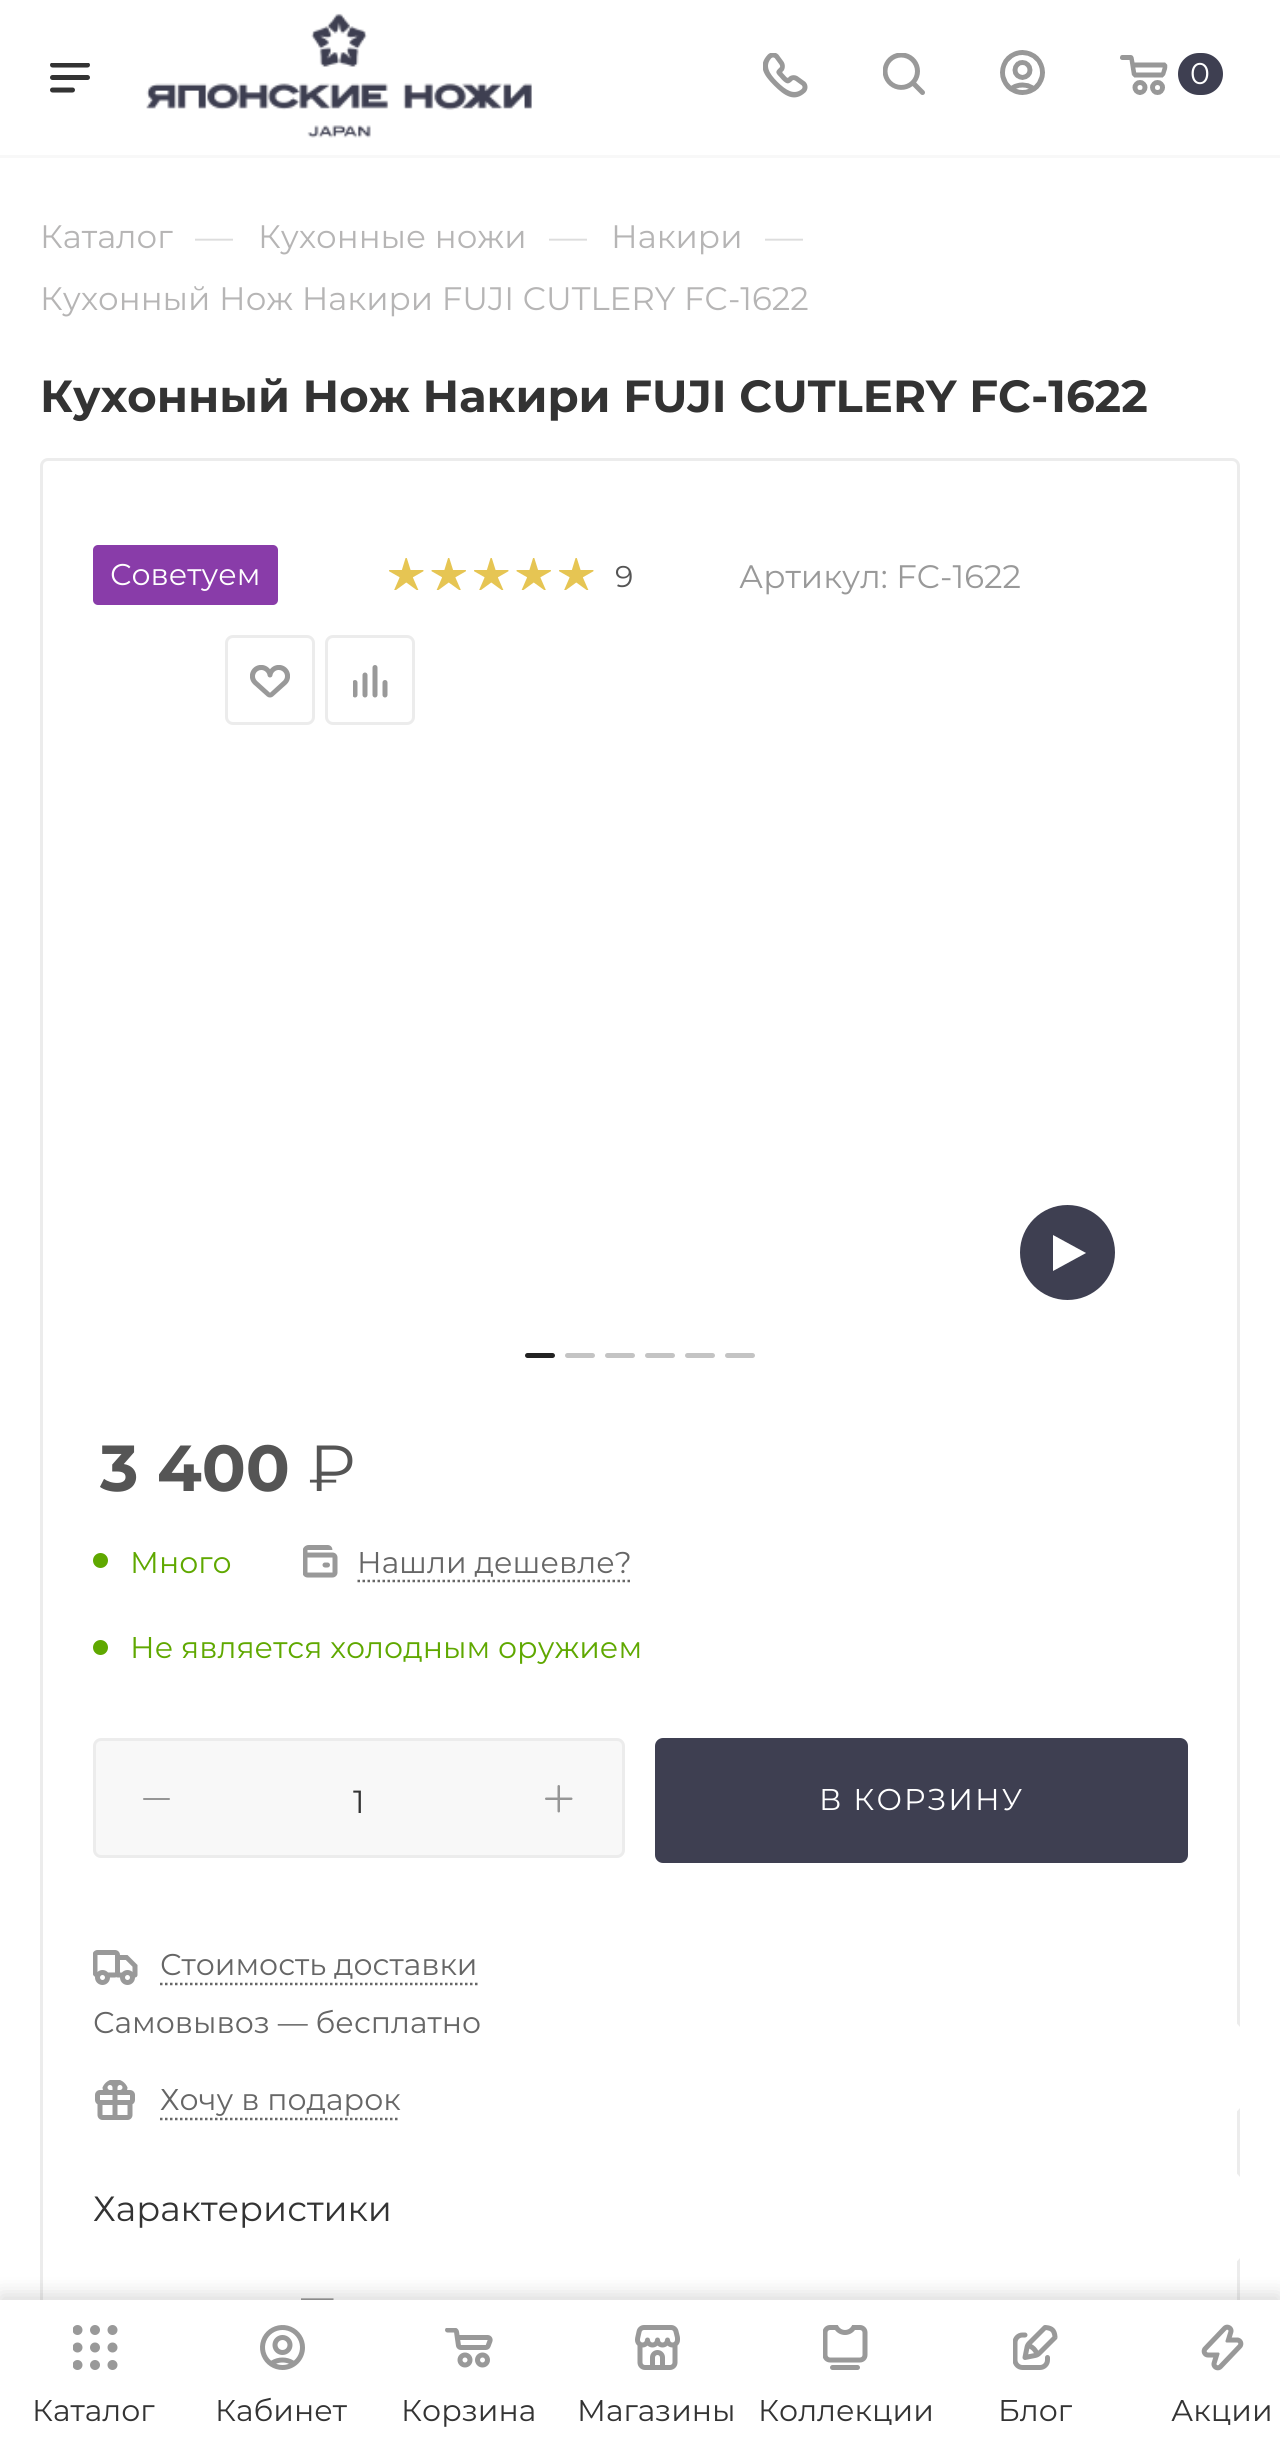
#include <cairo.h>
#include <math.h>
#include <stddef.h>

static cairo_t *c;
static void C(unsigned color){cairo_set_source_rgb(c, (color >> 16) / 255.0, (color >> 8 & 255) / 255.0, (color & 255) / 255.0);}
static void F(const char *family, double size, int italic, int bold){cairo_select_font_face(c, family, italic ? CAIRO_FONT_SLANT_ITALIC : CAIRO_FONT_SLANT_NORMAL,bold ? CAIRO_FONT_WEIGHT_BOLD : CAIRO_FONT_WEIGHT_NORMAL);cairo_set_font_size(c, size);}
static void T(double x, double y, const char *s){cairo_move_to(c, x, y);cairo_show_text(c, s);}
static void L(double x, double y, const char *s, double letter, double word){cairo_move_to(c, x, y);while (*s) {char ch[5] = {0};int n = 0;do ch[n++] = *s++; while ((*s & 0xC0) == 0x80);cairo_show_text(c, ch);cairo_rel_move_to(c, letter + word * (*ch == ' '), 0);}}
static void R(double x, double y, double w, double h){cairo_rectangle(c, x, y, w, h);cairo_fill(c);}
static void Q(double x, double y, double w, double h, double r){cairo_new_sub_path(c);cairo_arc(c, x + w - r, y + h - r, r, 0, M_PI / 2);cairo_arc(c, x + r, y + h - r, r, M_PI / 2, M_PI);cairo_arc(c, x + r, y + r, r, M_PI, 1.5 * M_PI);cairo_arc(c, x + w - r, y + r, r, 1.5 * M_PI, 2 * M_PI);cairo_close_path(c);}
static void S(double x, double y, double w, double h, double r, double blur, double alpha){cairo_push_group_with_content(c, CAIRO_CONTENT_ALPHA);cairo_set_operator(c, CAIRO_OPERATOR_SOURCE);for (int i = 15; i >= -15 && fmin(w, h) + blur * i / 3 > 0; i -= 2) {double e = blur * i / 6;cairo_set_source_rgba(c, 0, 0, 0, alpha * erfc((i - 1) / 8.5) / 2);Q(x - e, y - e, w + 2 * e, h + 2 * e, fmax(0, fmin(r + e + blur * .6, fmin(w, h) / 2 + e)));cairo_fill(c);}cairo_pattern_t *soft = cairo_pop_group(c);cairo_mask(c, soft);cairo_pattern_destroy(soft);}
static void I(const char *path, double x, double y, double w, double h){cairo_surface_t *image = cairo_image_surface_create_from_png(path);cairo_save(c);cairo_set_source_surface(c, image, x, y);cairo_rectangle(c, x, y, w, h);cairo_fill(c);cairo_restore(c);cairo_surface_destroy(image);}
int main(void) {
cairo_surface_t *surface = cairo_image_surface_create(CAIRO_FORMAT_RGB24, 1280, 2453);
c = cairo_create(surface);
cairo_font_options_t *options = cairo_font_options_create();
cairo_font_options_set_hint_metrics(options, CAIRO_HINT_METRICS_OFF);
cairo_font_options_set_hint_style(options, CAIRO_HINT_STYLE_NONE);
cairo_set_font_options(c, options);
cairo_set_miter_limit(c, 4);
C(0xffffff);
cairo_paint(c);
C(0xf8f8f8);
R(0,155,1280,3);
I("1.png",50,63,40,30);
I("2.png",146,13,386,125);
I("3.png",763,53,45,45);
I("4.png",883,53,42,42);
I("5.png",1000,50,45,45);
I("6.png",1120,55,48,40);
C(0x3e3f51);
Q(1178,53,45,42,21);
cairo_fill(c);
F("Montserrat",30,0,0);
C(0xffffff);
T(1190,84,"0");
F("Montserrat",32.5,0,0);
C(0xb6b5b5);
T(40,248,"Каталог");
F("Montserrat",38,0,0);
C(0xdddddd);
T(195,250,"—");
F("Montserrat",32.5,0,0);
C(0xb6b5b5);
T(258,248,"Кухонные ножи");
F("Montserrat",38,0,0);
C(0xdddddd);
T(549,250,"—");
F("Montserrat",32.5,0,0);
C(0xb6b5b5);
T(611,248,"Накири");
F("Montserrat",38,0,0);
C(0xdddddd);
T(765,250,"—");
F("Montserrat",32.5,0,0);
C(0xb6b5b5);
T(40,310,"Кухонный Нож Накири FUJI CUTLERY FC-1622");
F("Montserrat",45,0,1);
C(0x333333);
T(40,412,"Кухонный Нож Накири FUJI CUTLERY FC-1622");
Q(41.5,459.5,1197,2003,6.5);
C(0xececec);
cairo_set_line_width(c,3);
cairo_stroke(c);
C(0x893ca9);
Q(93,545,185,60,5);
cairo_fill(c);
F("Montserrat",30,0,0);
C(0xffffff);
T(110,585,"Советуем");
I("7.png",389,558,35,32);
I("8.png",431,558,35,32);
I("7.png",474,558,35,32);
I("8.png",516,558,35,32);
I("7.png",559,558,35,32);
C(0x555555);
T(615,587,"9");
F("Montserrat",32.5,0,0);
C(0x999999);
T(739,588,"Артикул: FC-1622");
Q(226.5,636.5,87,87,6.5);
C(0xececec);
cairo_stroke(c);
I("9.png",250,665,40,33);
Q(326.5,636.5,87,87,6.5);
cairo_stroke(c);
I("10.png",353,665,35,33);
C(0x3e3f51);
cairo_arc(c,1067.5,1252.5,47.5,0,2 * M_PI);
cairo_fill(c);
C(0xffffff);
cairo_new_path(c);
cairo_move_to(c,1053,1271);
cairo_line_to(c,1053,1235);
cairo_line_to(c,1086,1253);
cairo_close_path(c);
cairo_fill(c);
C(0x222222);
Q(525,1353,30,5,2.5);
cairo_fill(c);
C(0xc4c4c4);
Q(565,1353,30,5,2.5);
cairo_fill(c);
Q(605,1353,30,5,2.5);
cairo_fill(c);
Q(645,1353,30,5,2.5);
cairo_fill(c);
Q(685,1353,30,5,2.5);
cairo_fill(c);
Q(725,1353,30,5,2.5);
cairo_fill(c);
F("Montserrat",65,0,1);
C(0x555555);
T(100,1491,"3 400");
F("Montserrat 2",65,0,0);
T(308,1491,"₽");
C(0x5fa800);
cairo_new_path(c);
cairo_arc(c,100.5,1560.5,7.5,0,2 * M_PI);
cairo_fill(c);
F("Montserrat",30,0,0);
T(130,1573,"Много");
I("11.png",303,1545,35,33);
C(0x666666);
T(357,1573,"Нашли дешевле?");
cairo_new_path(c);
cairo_move_to(c,357.5,1581);
cairo_line_to(c,632.5,1581);
cairo_set_line_width(c,2.5);
cairo_set_dash(c,(double[]){2.5,2.5},2,0);
cairo_stroke(c);
C(0x5fa800);
cairo_arc(c,100.5,1647.5,7.5,0,2 * M_PI);
cairo_fill(c);
T(130,1658,"Не является холодным оружием");
C(0xf8f8f8);
Q(94.5,1739.5,529,117,6.5);
cairo_fill_preserve(c);
C(0xececec);
cairo_set_line_width(c,3);
cairo_set_dash(c,NULL,0,0);
cairo_stroke(c);
C(0x969696);
Q(143,1798,27,2,1);
cairo_fill(c);
F("Montserrat",32,0,0);
C(0x333333);
T(353,1813,"1");
I("12.png",545,1785,28,28);
C(0x3e3f51);
Q(656.5,1739.5,530,122,6.5);
cairo_fill_preserve(c);
cairo_stroke(c);
F("Montserrat",30,0,0);
C(0xffffff);
L(819,1810,"В КОРЗИНУ",2,0);
I("13.png",93,1950,45,35);
C(0x666666);
T(160,1975,"Стоимость доставки");
cairo_new_path(c);
cairo_move_to(c,160,1984);
cairo_line_to(c,477.5,1984);
cairo_set_line_width(c,2.5);
cairo_set_dash(c,(double[]){2.5,2.5},2,0);
cairo_stroke(c);
T(93,2033,"Самовывоз — бесплатно");
I("14.png",95,2080,40,40);
T(160,2110,"Хочу в подарок");
cairo_new_path(c);
cairo_move_to(c,160,2119);
cairo_line_to(c,400,2119);
cairo_stroke(c);
F("Montserrat",35,0,0);
C(0x333333);
T(93,2221,"Характеристики");
F("Montserrat",32.5,0,0);
C(0x999999);
T(301,2308,"—");
C(0xffffff);
cairo_new_path(c);
cairo_arc(c,1192.5,2067.5,62.5,0,2 * M_PI);
cairo_fill(c);
cairo_arc(c,1192.5,2217.5,62.5,0,2 * M_PI);
cairo_fill(c);
C(0x000000);
S(0,2295,1280,155,0,10,.15);
C(0xffffff);
R(0,2300,1280,153);
I("15.png",73,2325,45,45);
F("Montserrat",30,0,0);
C(0x333333);
T(32,2421,"Каталог");
I("16.png",260,2325,45,45);
T(215,2421,"Кабинет");
I("17.png",445,2328,48,40);
T(401,2421,"Корзина");
I("18.png",635,2325,45,45);
T(577,2421,"Магазины");
I("19.png",823,2325,45,45);
T(758,2421,"Коллекции");
I("20.png",1013,2325,45,45);
T(998,2421,"Блог");
I("21.png",1201,2324,43,47);
T(1171,2421,"Акции");
cairo_surface_write_to_png(surface, "o.png");
cairo_font_options_destroy(options);
cairo_destroy(c);
cairo_surface_destroy(surface);
return 0;
}
